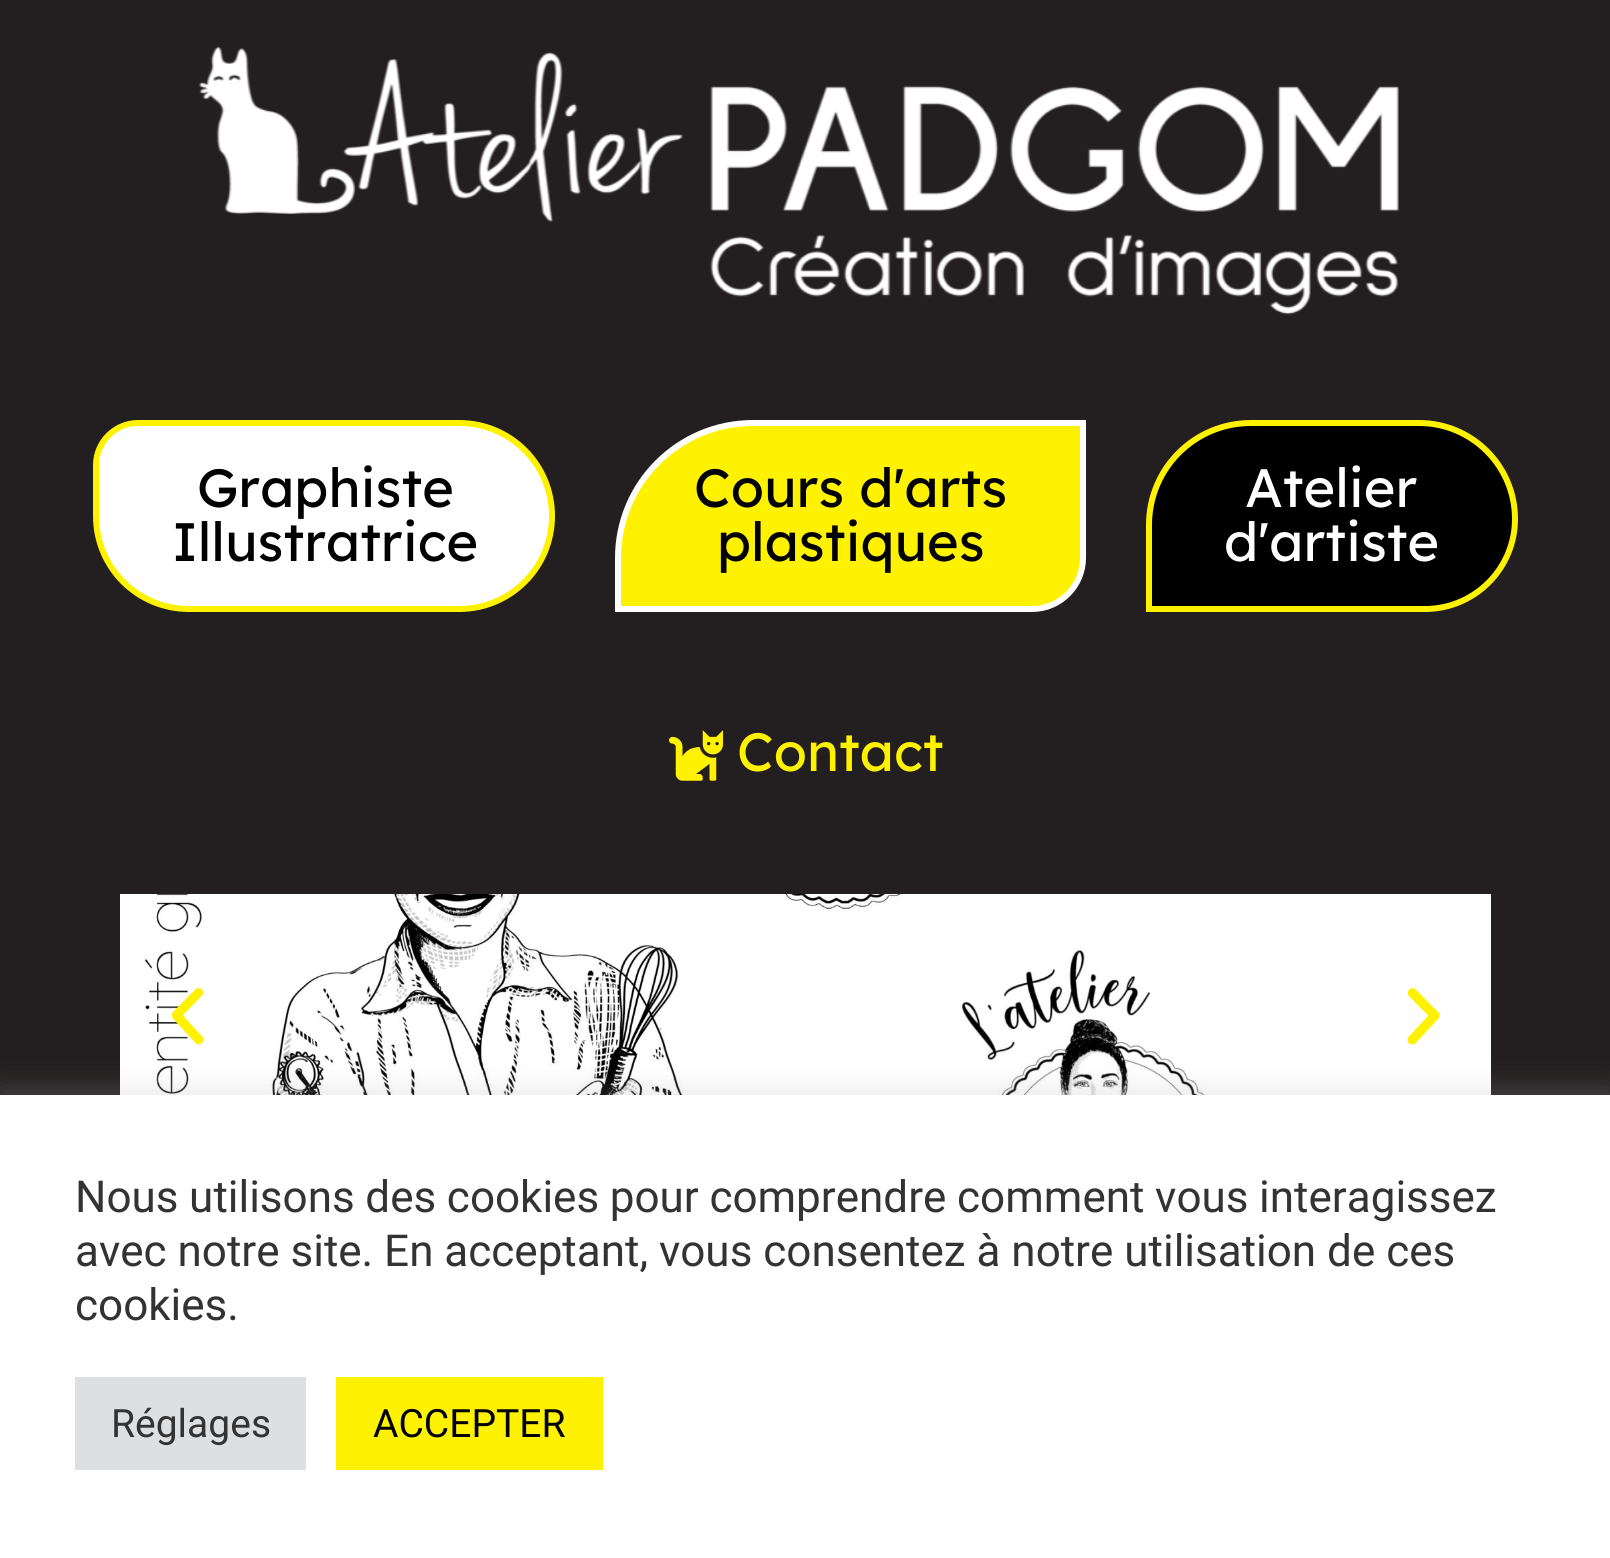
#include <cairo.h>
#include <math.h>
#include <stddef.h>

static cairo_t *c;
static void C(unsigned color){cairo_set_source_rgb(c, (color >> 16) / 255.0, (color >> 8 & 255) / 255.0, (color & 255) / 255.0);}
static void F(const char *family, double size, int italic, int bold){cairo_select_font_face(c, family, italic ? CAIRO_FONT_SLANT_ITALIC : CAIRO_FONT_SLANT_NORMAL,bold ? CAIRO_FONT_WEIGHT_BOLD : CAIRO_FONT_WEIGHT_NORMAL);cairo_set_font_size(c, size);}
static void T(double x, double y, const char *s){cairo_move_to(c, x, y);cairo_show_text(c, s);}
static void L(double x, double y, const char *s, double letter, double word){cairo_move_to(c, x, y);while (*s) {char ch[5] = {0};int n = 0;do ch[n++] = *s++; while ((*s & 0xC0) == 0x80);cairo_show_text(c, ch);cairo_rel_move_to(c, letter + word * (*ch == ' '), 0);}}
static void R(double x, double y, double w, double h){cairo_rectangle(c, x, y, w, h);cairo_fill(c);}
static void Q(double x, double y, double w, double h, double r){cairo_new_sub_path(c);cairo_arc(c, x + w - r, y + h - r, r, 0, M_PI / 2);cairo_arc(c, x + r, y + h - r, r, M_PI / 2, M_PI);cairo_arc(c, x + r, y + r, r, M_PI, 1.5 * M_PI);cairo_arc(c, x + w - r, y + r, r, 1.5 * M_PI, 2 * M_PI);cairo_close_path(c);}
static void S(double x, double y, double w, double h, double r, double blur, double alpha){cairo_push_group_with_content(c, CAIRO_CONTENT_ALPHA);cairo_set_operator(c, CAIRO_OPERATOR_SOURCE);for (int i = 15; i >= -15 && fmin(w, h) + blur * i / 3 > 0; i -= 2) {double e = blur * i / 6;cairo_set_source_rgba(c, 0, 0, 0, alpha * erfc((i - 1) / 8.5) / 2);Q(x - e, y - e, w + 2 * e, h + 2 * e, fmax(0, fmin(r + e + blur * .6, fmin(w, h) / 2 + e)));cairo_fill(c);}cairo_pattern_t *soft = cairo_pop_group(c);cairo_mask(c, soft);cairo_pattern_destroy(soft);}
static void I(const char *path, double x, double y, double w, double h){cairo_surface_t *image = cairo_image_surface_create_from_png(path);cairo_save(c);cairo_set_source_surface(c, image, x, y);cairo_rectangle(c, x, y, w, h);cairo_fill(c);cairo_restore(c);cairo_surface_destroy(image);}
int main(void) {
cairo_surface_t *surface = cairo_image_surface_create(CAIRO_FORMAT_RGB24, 1610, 1558);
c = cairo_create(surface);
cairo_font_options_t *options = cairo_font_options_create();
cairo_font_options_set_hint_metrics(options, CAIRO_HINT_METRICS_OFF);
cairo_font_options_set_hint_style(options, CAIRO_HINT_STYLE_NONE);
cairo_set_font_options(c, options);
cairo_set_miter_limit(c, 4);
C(0x231f20);
cairo_paint(c);
I("1.png",198,46,1201,269);
C(0xffffff);
cairo_new_path(c);
cairo_move_to(c,138,423);
cairo_line_to(c,459,423);
cairo_curve_to(c,510.5,423,552,464.5,552,516);
cairo_curve_to(c,552,567.5,510.5,609,459,609);
cairo_line_to(c,189,609);
cairo_curve_to(c,137.5,609,96,567.5,96,516);
cairo_line_to(c,96,465);
cairo_curve_to(c,96,442,115,423,138,423);
cairo_close_path(c);
cairo_fill_preserve(c);
C(0xfff200);
cairo_set_line_width(c,6);
cairo_stroke(c);
F("Lexend",54,0,0);
C(0x000000);
T(197,507,"Graphiste");
T(172,561,"Illustratrice");
C(0xfff200);
cairo_new_path(c);
cairo_move_to(c,753,423);
cairo_line_to(c,1083,423);
cairo_line_to(c,1083,558);
cairo_curve_to(c,1083,586,1060,609,1032,609);
cairo_line_to(c,618,609);
cairo_line_to(c,618,558);
cairo_curve_to(c,618,483.5,678.5,423,753,423);
cairo_close_path(c);
cairo_fill_preserve(c);
C(0xffffff);
cairo_stroke(c);
C(0x000000);
T(694,507,"Cours d'arts");
T(717,561,"plastiques");
cairo_new_path(c);
cairo_move_to(c,1251,423);
cairo_line_to(c,1419,423);
cairo_curve_to(c,1472,423,1515,466,1515,519);
cairo_curve_to(c,1515,568.5,1474.5,609,1425,609);
cairo_line_to(c,1149,609);
cairo_line_to(c,1149,525);
cairo_curve_to(c,1149,468.5,1194.5,423,1251,423);
cairo_close_path(c);
cairo_fill_preserve(c);
C(0xfff200);
cairo_stroke(c);
C(0xffffff);
T(1245,507,"Atelier");
T(1224,561,"d'artiste");
I("2.png",669,730,54,51);
C(0xfff200);
T(737,771,"Contact");
I("3.png",120,894,1371,201);
I("4.png",171,988,33,57);
I("5.png",1407,988,33,57);
C(0xacabab);
S(0,1092,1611,465,0,15,.3);
C(0xffffff);
R(0,1095,1610,463);
F("Roboto",44,0,0);
C(0x333333);
L(75,1212,"Nous utilisons des cookies pour comprendre comment vous interagissez",0,-.25);
T(75,1266,"avec notre site. En acceptant, vous consentez à notre utilisation de ces");
T(75,1320,"cookies.");
C(0xdedfe0);
R(75,1377,231,93);
F("Roboto",39,0,0);
C(0x333333);
T(111,1437,"Réglages");
C(0xfff200);
R(336,1377,267,93);
C(0x000000);
T(373,1437,"ACCEPTER");
cairo_surface_write_to_png(surface, "o.png");
cairo_font_options_destroy(options);
cairo_destroy(c);
cairo_surface_destroy(surface);
return 0;
}
